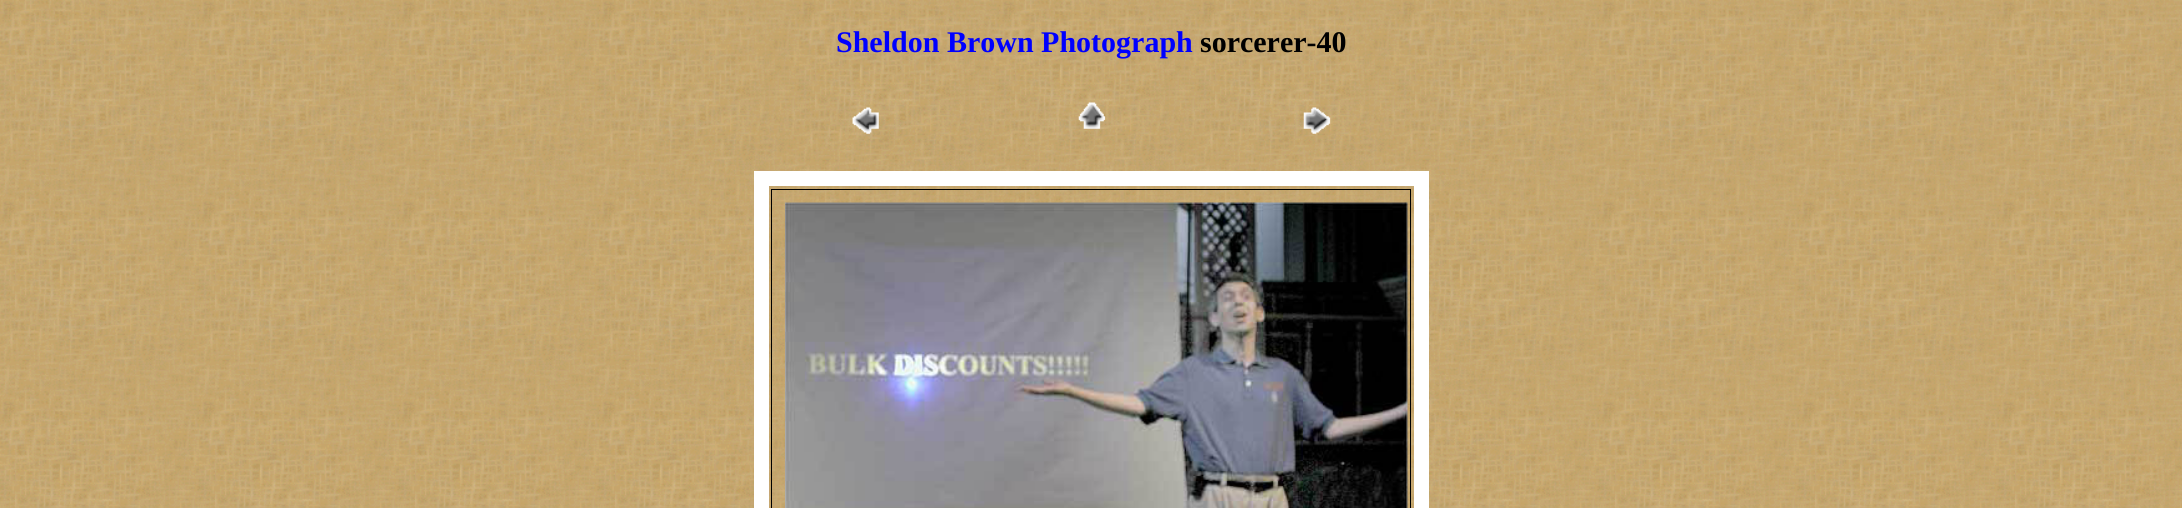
#include <cairo.h>
#include <math.h>
#include <stddef.h>

static cairo_t *c;
static void C(unsigned color){cairo_set_source_rgb(c, (color >> 16) / 255.0, (color >> 8 & 255) / 255.0, (color & 255) / 255.0);}
static void F(const char *family, double size, int italic, int bold){cairo_select_font_face(c, family, italic ? CAIRO_FONT_SLANT_ITALIC : CAIRO_FONT_SLANT_NORMAL,bold ? CAIRO_FONT_WEIGHT_BOLD : CAIRO_FONT_WEIGHT_NORMAL);cairo_set_font_size(c, size);}
static void T(double x, double y, const char *s){cairo_move_to(c, x, y);cairo_show_text(c, s);}
static void I(const char *path, double x, double y, double w, double h){cairo_surface_t *image = cairo_image_surface_create_from_png(path);cairo_save(c);cairo_set_source_surface(c, image, x, y);cairo_rectangle(c, x, y, w, h);cairo_fill(c);cairo_restore(c);cairo_surface_destroy(image);}
int main(void) {
cairo_surface_t *surface = cairo_image_surface_create(CAIRO_FORMAT_RGB24, 2182, 508);
c = cairo_create(surface);
cairo_font_options_t *options = cairo_font_options_create();
cairo_font_options_set_hint_metrics(options, CAIRO_HINT_METRICS_OFF);
cairo_font_options_set_hint_style(options, CAIRO_HINT_STYLE_NONE);
cairo_set_font_options(c, options);
cairo_set_miter_limit(c, 4);
C(0xffffff);
cairo_paint(c);
I("1.png",0,0,2182,508);
F("Liberation Serif",30,0,1);
C(0x0000ff);
T(836,52,"Sheldon Brown Photograph");
C(0x000000);
T(1200,52,"sorcerer-40");
I("2.png",852,107,27,27);
I("3.png",1078,102,28,27);
I("4.png",1303,107,28,27);
cairo_rectangle(c,761.5,178.5,660,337);
C(0xffffff);
cairo_set_line_width(c,15);
cairo_stroke(c);
cairo_rectangle(c,771.5,189.5,639,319);
C(0x000000);
cairo_set_line_width(c,1);
cairo_stroke(c);
I("5.png",785,202,623,306);
cairo_surface_write_to_png(surface, "o.png");
cairo_font_options_destroy(options);
cairo_destroy(c);
cairo_surface_destroy(surface);
return 0;
}
